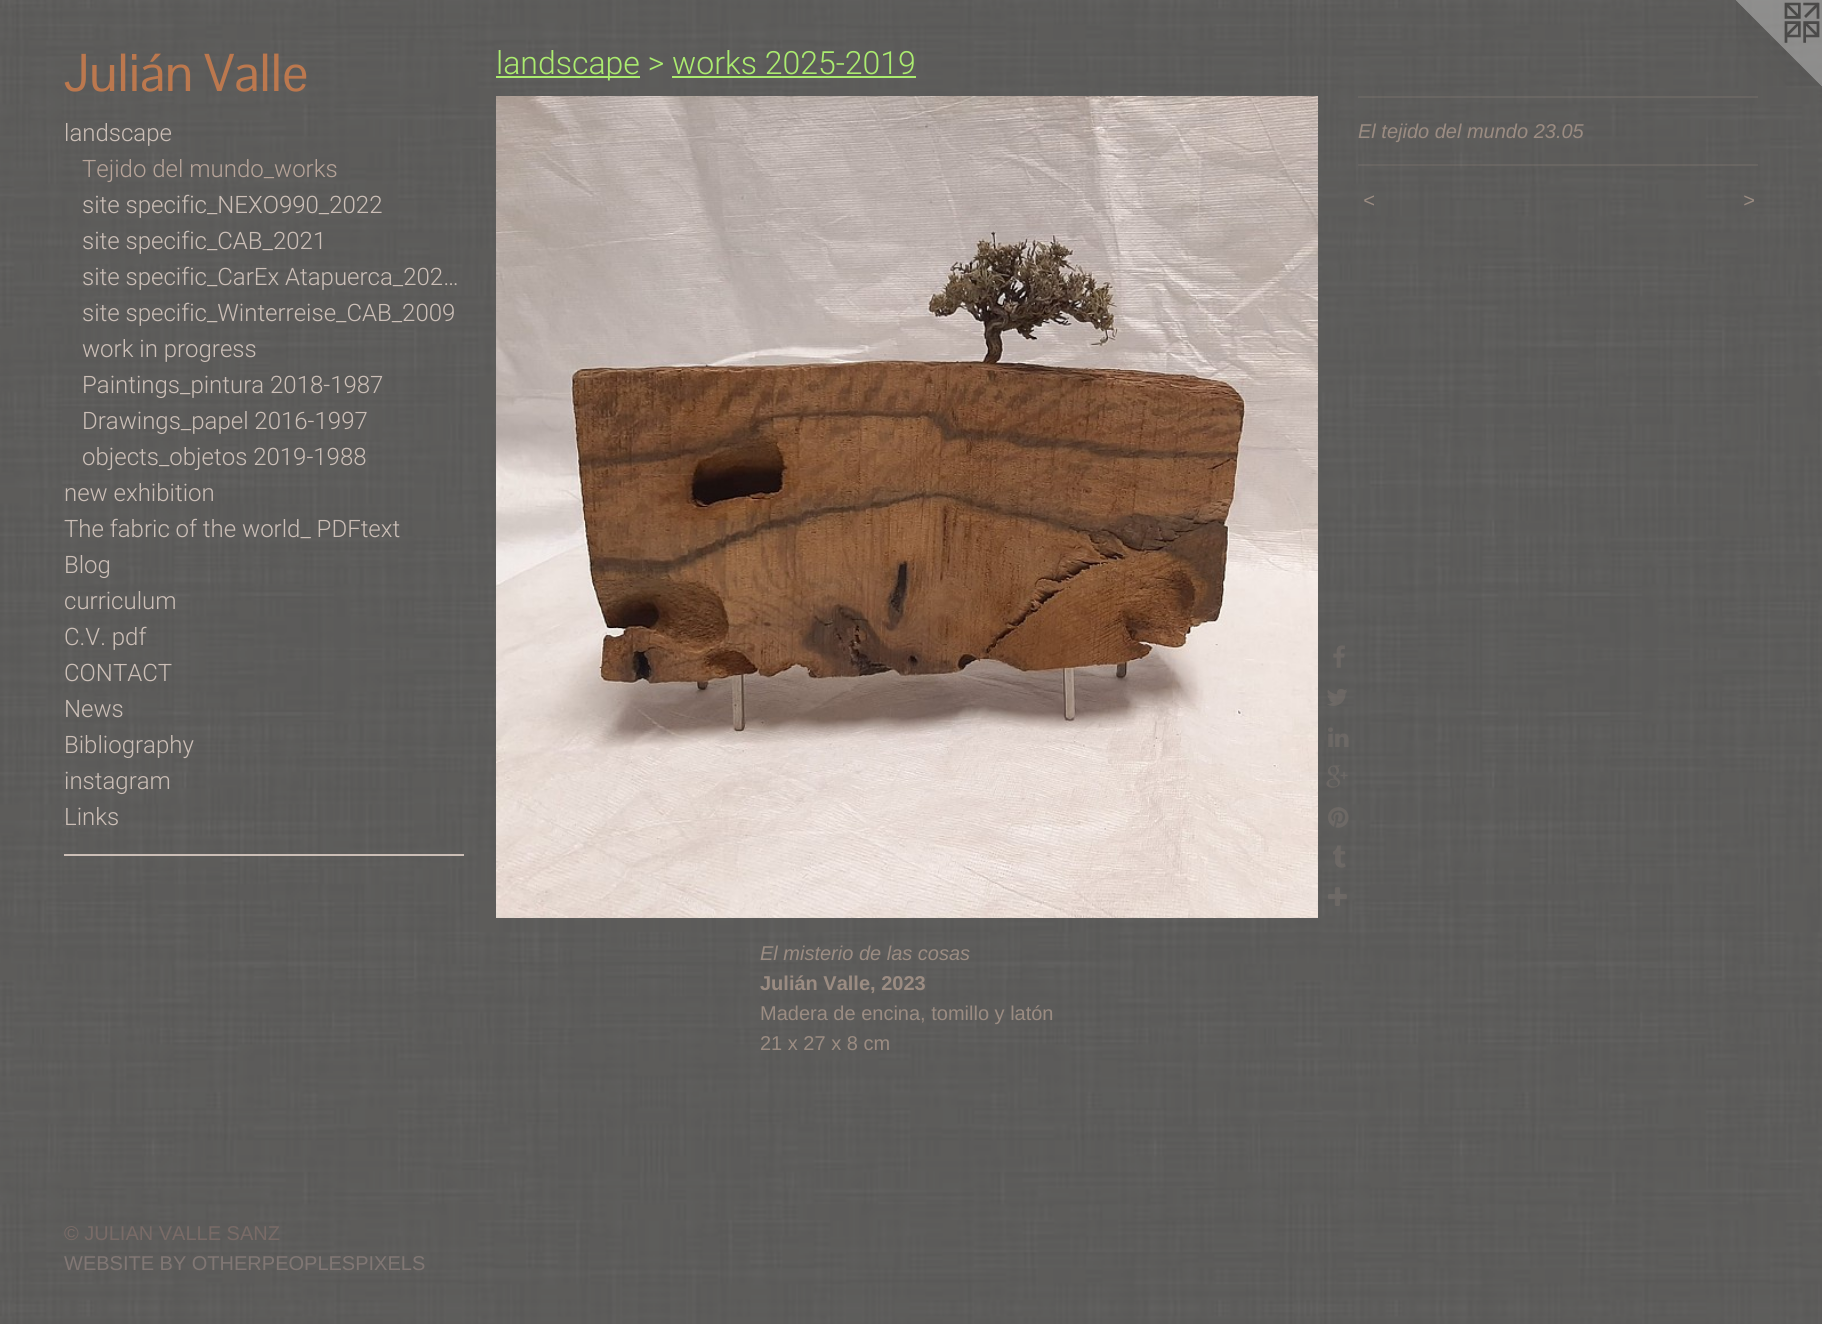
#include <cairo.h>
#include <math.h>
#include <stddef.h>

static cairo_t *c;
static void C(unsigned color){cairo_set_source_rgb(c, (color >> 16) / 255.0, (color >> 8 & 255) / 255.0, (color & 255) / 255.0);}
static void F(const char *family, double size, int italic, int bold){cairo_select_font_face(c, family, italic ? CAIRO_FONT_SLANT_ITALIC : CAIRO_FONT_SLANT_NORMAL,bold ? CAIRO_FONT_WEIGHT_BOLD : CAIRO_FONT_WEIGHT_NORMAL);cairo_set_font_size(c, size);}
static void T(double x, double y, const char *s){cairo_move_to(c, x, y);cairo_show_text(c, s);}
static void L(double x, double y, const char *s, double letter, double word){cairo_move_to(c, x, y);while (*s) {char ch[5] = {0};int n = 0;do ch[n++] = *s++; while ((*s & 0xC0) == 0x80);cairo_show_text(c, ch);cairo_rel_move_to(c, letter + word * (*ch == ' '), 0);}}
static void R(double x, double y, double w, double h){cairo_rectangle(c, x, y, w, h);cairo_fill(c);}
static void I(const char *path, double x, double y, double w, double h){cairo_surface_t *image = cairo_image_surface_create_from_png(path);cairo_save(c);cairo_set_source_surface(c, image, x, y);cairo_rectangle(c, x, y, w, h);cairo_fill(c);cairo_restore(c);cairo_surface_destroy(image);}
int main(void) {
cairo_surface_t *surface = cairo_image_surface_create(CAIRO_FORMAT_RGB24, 1822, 1324);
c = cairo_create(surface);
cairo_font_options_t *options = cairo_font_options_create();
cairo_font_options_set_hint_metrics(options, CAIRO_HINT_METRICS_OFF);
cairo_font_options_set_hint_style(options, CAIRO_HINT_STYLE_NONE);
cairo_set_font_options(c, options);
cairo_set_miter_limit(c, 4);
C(0xffffff);
cairo_paint(c);
I("1.png",0,0,1822,1324);
F("Pontano Sans",52,0,0);
C(0xbc784e);
T(64,91,"Julián Valle");
F("Roboto Light",24,0,0);
C(0xccbfb7);
T(64,141,"landscape");
C(0xb7a499);
T(82,177,"Tejido del mundo_works");
C(0xccbfb7);
T(82,213,"site specific_NEXO990_2022");
T(82,249,"site specific_CAB_2021");
T(82,285,"site specific_CarEx Atapuerca_202…");
T(82,321,"site specific_Winterreise_CAB_2009");
T(82,357,"work in progress");
T(82,393,"Paintings_pintura 2018-1987");
T(82,429,"Drawings_papel 2016-1997");
T(82,465,"objects_objetos 2019-1988");
T(64,501,"new exhibition");
T(64,537,"The fabric of the world_ PDFtext");
T(64,573,"Blog");
T(64,609,"curriculum");
T(64,645,"C.V. pdf");
T(64,681,"CONTACT");
T(64,717,"News");
T(64,753,"Bibliography");
T(64,789,"instagram");
T(64,825,"Links");
R(64,854,400,2);
F("Liberation Sans",20,0,0);
C(0x796b67);
T(64,1240,"© JULIAN VALLE SANZ");
C(0x817774);
T(64,1270,"WEBSITE BY OTHERPEOPLESPIXELS");
C(0xabec6f);
R(496,76,144,2);
F("Roboto Light",32,0,0);
T(496,74,"landscape > works 2025-2019");
R(672,76,244,2);
I("2.png",496,96,822,822);
I("3.png",1333,645,12,23);
I("4.png",1327,689,20,17);
I("5.png",1328,727,21,20);
I("6.png",1326,765,22,23);
I("7.png",1328,807,21,21);
I("8.png",1333,845,13,23);
I("9.png",1328,887,19,19);
cairo_set_source_rgba(c,0.608,0.549,0.51,0.2);
R(1358,96,400,2);
F("Liberation Sans",20,1,0);
C(0x9b8c82);
T(1358,138,"El tejido del mundo 23.05");
cairo_set_source_rgba(c,0.608,0.549,0.51,0.2);
R(1358,164,400,2);
C(0x9b8c82);
L(1363,207,"<",2,0);
L(1743,207,">",2,0);
T(760,960,"El misterio de las cosas");
F("Liberation Sans",20,0,1);
T(760,990,"Julián Valle, 2023");
F("Liberation Sans",20,0,0);
T(760,1020,"Madera de encina, tomillo y latón");
T(760,1050,"21 x 27 x 8 cm");
I("10.png",1736,0,86,86);
cairo_surface_write_to_png(surface, "o.png");
cairo_font_options_destroy(options);
cairo_destroy(c);
cairo_surface_destroy(surface);
return 0;
}
